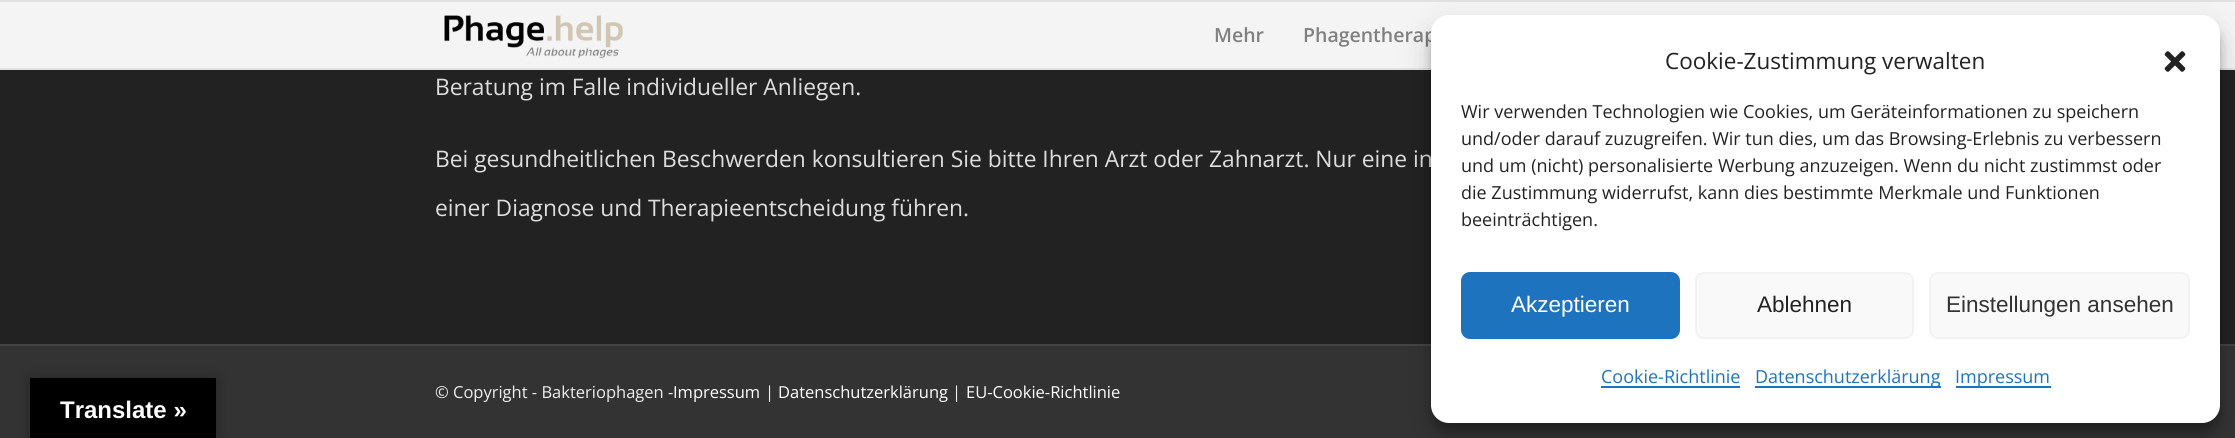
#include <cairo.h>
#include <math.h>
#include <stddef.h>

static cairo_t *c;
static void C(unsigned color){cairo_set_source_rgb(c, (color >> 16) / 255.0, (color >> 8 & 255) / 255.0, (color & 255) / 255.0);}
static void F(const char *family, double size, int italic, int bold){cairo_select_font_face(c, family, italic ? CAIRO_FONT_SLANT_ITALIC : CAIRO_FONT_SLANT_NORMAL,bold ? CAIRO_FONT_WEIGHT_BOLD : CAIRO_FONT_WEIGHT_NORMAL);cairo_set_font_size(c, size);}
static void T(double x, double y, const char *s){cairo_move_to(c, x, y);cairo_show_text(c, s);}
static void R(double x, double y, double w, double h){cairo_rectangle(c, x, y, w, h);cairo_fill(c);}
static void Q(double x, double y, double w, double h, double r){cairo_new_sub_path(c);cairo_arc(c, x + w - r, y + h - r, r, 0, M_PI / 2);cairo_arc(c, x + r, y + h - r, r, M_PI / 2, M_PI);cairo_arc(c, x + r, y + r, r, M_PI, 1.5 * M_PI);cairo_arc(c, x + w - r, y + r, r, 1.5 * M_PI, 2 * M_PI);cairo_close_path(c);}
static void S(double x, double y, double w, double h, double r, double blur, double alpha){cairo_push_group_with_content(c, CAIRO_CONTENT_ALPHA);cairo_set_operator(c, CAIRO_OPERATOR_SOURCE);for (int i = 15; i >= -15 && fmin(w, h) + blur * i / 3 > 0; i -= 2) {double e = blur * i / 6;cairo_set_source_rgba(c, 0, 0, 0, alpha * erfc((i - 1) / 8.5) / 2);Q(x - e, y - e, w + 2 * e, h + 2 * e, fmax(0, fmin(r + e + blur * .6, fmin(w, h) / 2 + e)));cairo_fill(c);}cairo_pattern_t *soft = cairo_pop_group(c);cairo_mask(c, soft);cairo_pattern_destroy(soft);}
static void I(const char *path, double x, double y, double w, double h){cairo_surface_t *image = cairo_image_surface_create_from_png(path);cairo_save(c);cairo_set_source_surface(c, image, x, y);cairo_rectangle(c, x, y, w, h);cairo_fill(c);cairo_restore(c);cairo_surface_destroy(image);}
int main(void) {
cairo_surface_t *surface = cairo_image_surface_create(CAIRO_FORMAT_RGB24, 2235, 438);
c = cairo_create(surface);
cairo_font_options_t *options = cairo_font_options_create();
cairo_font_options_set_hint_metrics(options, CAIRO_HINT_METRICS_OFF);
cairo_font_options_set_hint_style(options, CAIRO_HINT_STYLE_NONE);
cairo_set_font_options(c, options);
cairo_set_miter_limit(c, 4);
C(0x222222);
cairo_paint(c);
C(0xe1e1e1);
R(0,0,2235,2);
R(0,68,2235,2);
C(0xf4f4f4);
R(0,2,2235,66);
I("1.png",444,15,179,44);
F("Open Sans SemiBold",19.5,0,0);
C(0x808080);
T(1214,42,"Mehr");
T(1303,42,"Phagentherap");
F("Open Sans",22.8,0,0);
C(0xdddddd);
T(435,95,"Beratung im Falle individueller Anliegen.");
T(435,167,"Bei gesundheitlichen Beschwerden konsultieren Sie bitte Ihren Arzt oder Zahnarzt. Nur eine in");
T(435,216,"einer Diagnose und Therapieentscheidung führen.");
C(0x333333);
R(0,346,2235,92);
C(0x444444);
R(0,344,2235,2);
F("Open Sans",16.5,0,0);
C(0xeeeeee);
T(435,398,"© Copyright - Bakteriophagen -");
C(0xffffff);
T(673,398,"Impressum");
C(0xeeeeee);
T(765,398,"|");
C(0xffffff);
T(778,398,"Datenschutzerklärung");
C(0xeeeeee);
T(952,398,"|");
C(0xffffff);
T(966,398,"EU-Cookie-Richtlinie");
C(0x000000);
S(1431,24,789,408,18,4.5,.23);
S(1431,30,789,408,18,15,.19);
C(0xffffff);
Q(1431,15,789,408,18);
cairo_fill(c);
F("Open Sans",22.5,0,0);
C(0x222222);
T(1665,69,"Cookie-Zustimmung verwalten");
I("2.png",2164,51,22,21);
F("Open Sans",18,0,0);
T(1461,118,"Wir verwenden Technologien wie Cookies, um Geräteinformationen zu speichern");
T(1461,145,"und/oder darauf zuzugreifen. Wir tun dies, um das Browsing-Erlebnis zu verbessern");
T(1461,172,"und um (nicht) personalisierte Werbung anzuzeigen. Wenn du nicht zustimmst oder");
T(1461,199,"die Zustimmung widerrufst, kann dies bestimmte Merkmale und Funktionen");
T(1461,226,"beeinträchtigen.");
C(0x1e73be);
Q(1462,273,217,65,8);
cairo_fill_preserve(c);
cairo_stroke(c);
F("Liberation Sans",22.5,0,0);
C(0xffffff);
T(1511,312,"Akzeptieren");
C(0xf9f9f9);
Q(1696,273,217,65,8);
cairo_fill_preserve(c);
C(0xf2f2f2);
cairo_stroke(c);
C(0x222222);
T(1757,312,"Ablehnen");
C(0xf9f9f9);
Q(1930,273,259,65,8);
cairo_fill_preserve(c);
C(0xf2f2f2);
cairo_stroke(c);
C(0x333333);
T(1946,312,"Einstellungen ansehen");
F("Open Sans",18,0,0);
C(0x1e73be);
T(1601,383,"Cookie-Richtlinie");
R(1601,386,139,2);
R(1755,386,186,2);
T(1755,383,"Datenschutzerklärung");
R(1956,386,95,2);
T(1955,383,"Impressum");
C(0x000000);
S(30,378,186,60,0,7,.3);
C(0x000000);
R(30,378,186,60);
F("Liberation Sans",24,0,1);
C(0xffffff);
T(60,418,"Translate »");
cairo_surface_write_to_png(surface, "o.png");
cairo_font_options_destroy(options);
cairo_destroy(c);
cairo_surface_destroy(surface);
return 0;
}
